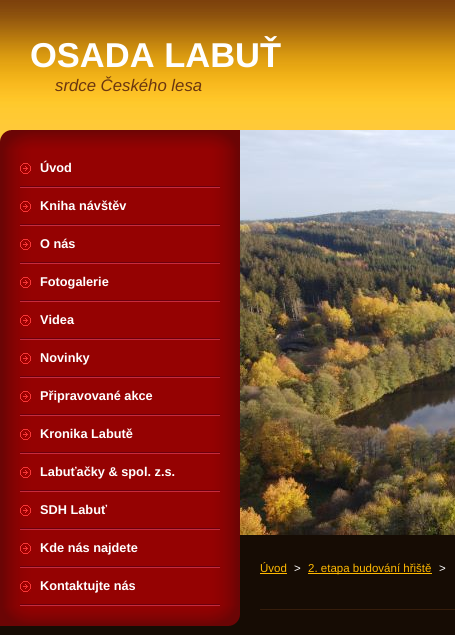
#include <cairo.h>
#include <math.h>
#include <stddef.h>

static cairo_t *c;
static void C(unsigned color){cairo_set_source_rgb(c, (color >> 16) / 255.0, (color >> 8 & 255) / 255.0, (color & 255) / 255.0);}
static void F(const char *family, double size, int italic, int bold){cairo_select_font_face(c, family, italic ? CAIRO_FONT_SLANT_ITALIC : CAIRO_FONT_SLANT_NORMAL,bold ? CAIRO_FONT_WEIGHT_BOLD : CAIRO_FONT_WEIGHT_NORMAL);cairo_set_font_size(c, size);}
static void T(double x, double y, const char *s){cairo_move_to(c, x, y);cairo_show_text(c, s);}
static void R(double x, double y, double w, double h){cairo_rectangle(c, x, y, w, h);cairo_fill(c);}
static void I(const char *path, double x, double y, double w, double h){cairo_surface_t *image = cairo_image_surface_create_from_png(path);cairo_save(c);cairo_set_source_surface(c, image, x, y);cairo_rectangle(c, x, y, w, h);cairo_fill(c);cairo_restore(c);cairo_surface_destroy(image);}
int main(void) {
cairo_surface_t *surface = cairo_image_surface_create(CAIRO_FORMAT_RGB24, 455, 635);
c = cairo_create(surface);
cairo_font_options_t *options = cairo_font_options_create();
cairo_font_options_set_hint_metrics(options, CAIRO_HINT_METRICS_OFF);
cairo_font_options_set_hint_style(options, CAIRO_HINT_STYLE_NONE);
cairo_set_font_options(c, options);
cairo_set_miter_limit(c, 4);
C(0x160c04);
cairo_paint(c);
I("1.png",0,0,455,142);
F("Liberation Sans",34.5,0,1);
C(0xffffff);
T(30,67,"OSADA LABUŤ");
F("Liberation Sans",16.75,1,0);
C(0x6a3610);
T(55,91,"srdce Českého lesa");
I("2.png",0,130,240,20);
I("3.png",0,606,240,20);
I("4.png",0,150,240,456);
I("5.png",20,186,200,2);
I("6.png",20,163,11,11);
F("Liberation Sans",12.75,0,1);
C(0xffffff);
T(40,172,"Úvod");
I("5.png",20,224,200,2);
I("6.png",20,201,11,11);
T(40,210,"Kniha návštěv");
I("5.png",20,262,200,2);
I("6.png",20,239,11,11);
T(40,248,"O nás");
I("5.png",20,300,200,2);
I("6.png",20,277,11,11);
T(40,286,"Fotogalerie");
I("5.png",20,338,200,2);
I("6.png",20,315,11,11);
T(40,324,"Videa");
I("5.png",20,376,200,2);
I("6.png",20,353,11,11);
T(40,362,"Novinky");
I("5.png",20,414,200,2);
I("6.png",20,391,11,11);
T(40,400,"Připravované akce");
I("5.png",20,452,200,2);
I("6.png",20,429,11,11);
T(40,438,"Kronika Labutě");
I("5.png",20,490,200,2);
I("6.png",20,467,11,11);
T(40,476,"Labuťačky & spol. z.s.");
I("5.png",20,528,200,2);
I("6.png",20,505,11,11);
T(40,514,"SDH Labuť");
I("5.png",20,566,200,2);
I("6.png",20,543,11,11);
T(40,552,"Kde nás najdete");
I("5.png",20,604,200,2);
I("6.png",20,581,11,11);
T(40,590,"Kontaktujte nás");
I("7.png",240,130,215,405);
F("Liberation Sans",11.5,0,0);
C(0xffb901);
T(260,572,"Úvod");
R(260,573,27,1);
C(0xffffff);
T(294,572,">");
C(0xffb901);
R(308,573,124,1);
T(308,572,"2. etapa budování hřiště");
C(0xffffff);
T(439,572,">");
C(0x361d0b);
R(260,609,195,1);
cairo_surface_write_to_png(surface, "o.png");
cairo_font_options_destroy(options);
cairo_destroy(c);
cairo_surface_destroy(surface);
return 0;
}
